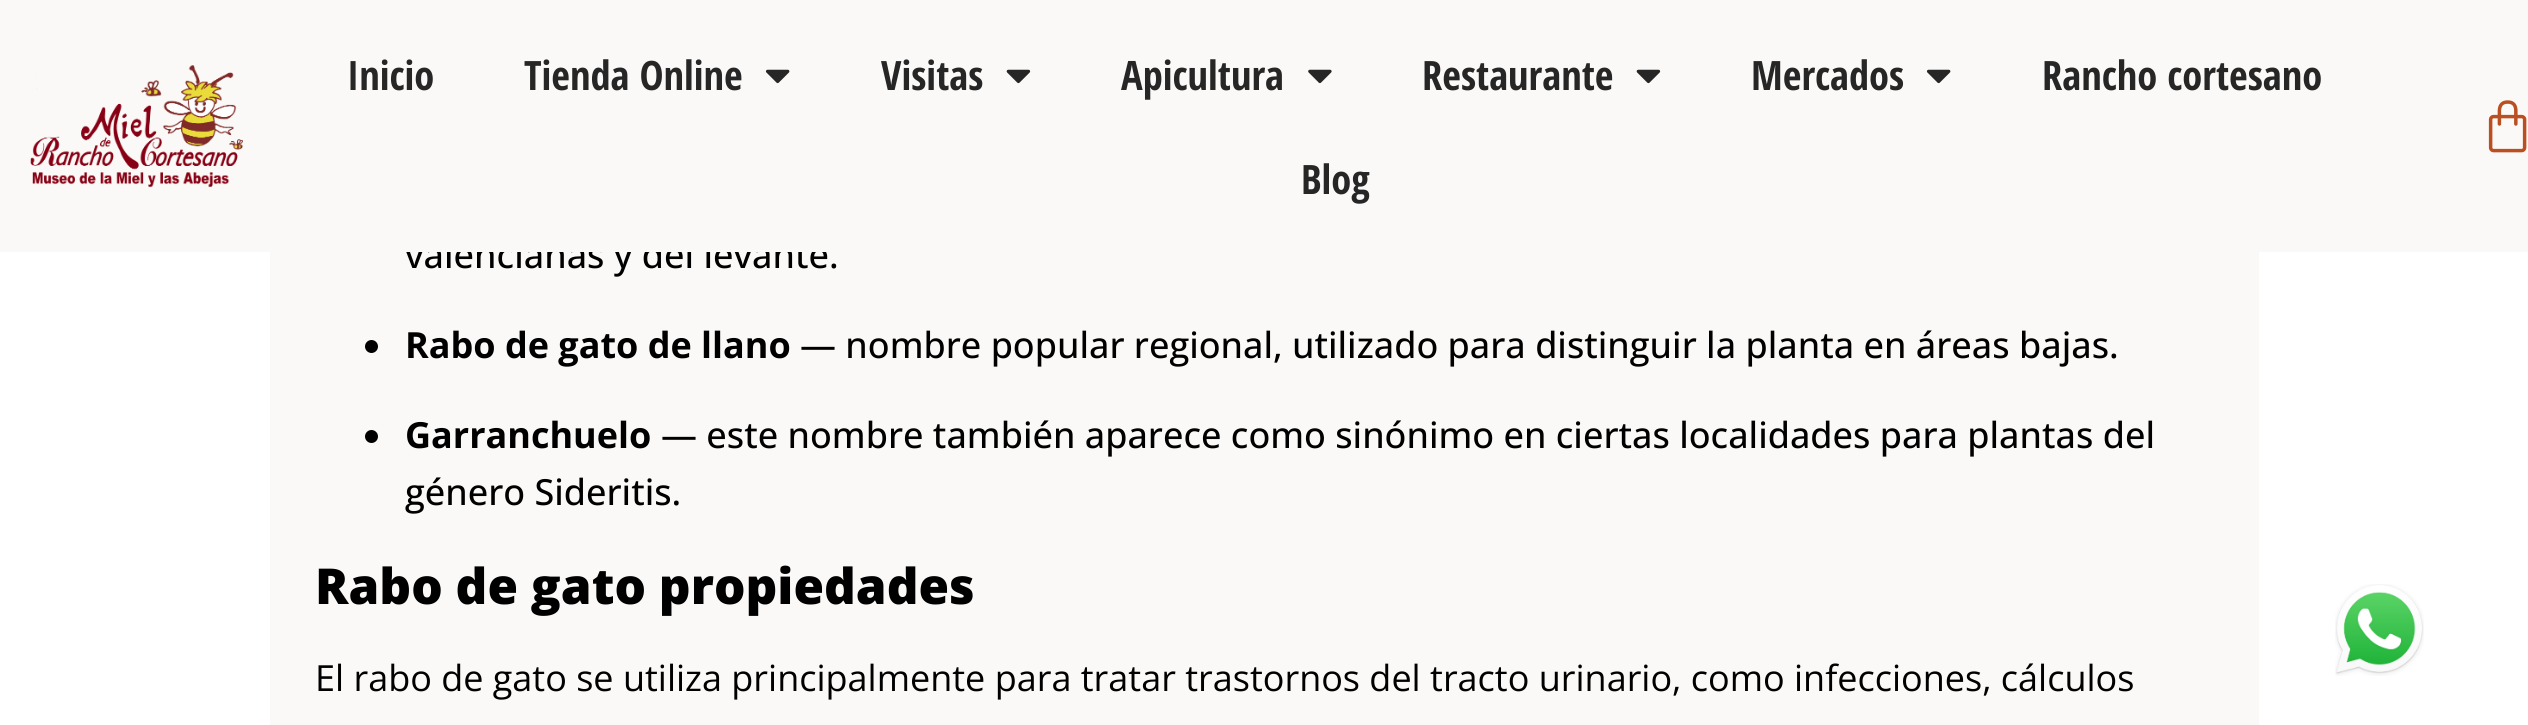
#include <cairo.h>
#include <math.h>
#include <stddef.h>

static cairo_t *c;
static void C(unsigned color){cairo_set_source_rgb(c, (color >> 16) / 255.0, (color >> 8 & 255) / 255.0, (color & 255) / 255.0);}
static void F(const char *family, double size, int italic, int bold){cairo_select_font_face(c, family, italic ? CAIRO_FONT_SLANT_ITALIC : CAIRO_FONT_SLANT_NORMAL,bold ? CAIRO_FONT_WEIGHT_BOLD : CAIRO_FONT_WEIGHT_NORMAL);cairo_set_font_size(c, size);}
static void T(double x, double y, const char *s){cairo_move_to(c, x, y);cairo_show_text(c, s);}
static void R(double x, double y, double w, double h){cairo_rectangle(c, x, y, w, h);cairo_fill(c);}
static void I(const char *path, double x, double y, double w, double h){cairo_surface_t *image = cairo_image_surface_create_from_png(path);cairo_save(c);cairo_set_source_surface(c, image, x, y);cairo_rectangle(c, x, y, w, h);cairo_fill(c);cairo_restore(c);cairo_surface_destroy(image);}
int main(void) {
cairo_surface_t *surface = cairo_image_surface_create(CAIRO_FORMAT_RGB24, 2528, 725);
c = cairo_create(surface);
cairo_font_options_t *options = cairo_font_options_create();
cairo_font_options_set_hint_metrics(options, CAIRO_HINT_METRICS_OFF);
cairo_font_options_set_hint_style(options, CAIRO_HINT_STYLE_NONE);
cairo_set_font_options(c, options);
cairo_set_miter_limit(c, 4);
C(0xffffff);
cairo_paint(c);
C(0xfbf9f7);
R(270,252,1989,473);
F("Open Sans Medium",36,0,0);
C(0x000000);
T(405,268,"valencianas y del levante.");
C(0xfbf9f7);
R(0,0,2528,252);
I("1.png",30,65,213,122);
F("Open Sans Condensed",40.5,0,1);
C(0x262626);
T(347,90,"Inicio");
T(524,90,"Tienda Online");
I("2.png",765,69,25,15);
T(881,90,"Visitas");
I("3.png",1006,69,25,15);
T(1121,90,"Apicultura");
I("4.png",1308,69,24,15);
T(1422,90,"Restaurante");
I("3.png",1636,69,25,15);
T(1751,90,"Mercados");
I("2.png",1926,69,25,15);
T(2042,90,"Rancho cortesano");
T(1301,194,"Blog");
I("5.png",2488,100,39,53);
C(0x000000);
cairo_arc(c,371.5,346.5,6.5,0,2 * M_PI);
cairo_fill(c);
F("Open Sans",36,0,1);
T(405,358,"Rabo de gato de llano");
F("Open Sans Medium",36,0,0);
T(800,358,"— nombre popular regional, utilizado para distinguir la planta en áreas bajas.");
cairo_new_path(c);
cairo_arc(c,371.5,436.5,6.5,0,2 * M_PI);
cairo_fill(c);
F("Open Sans",36,0,1);
T(405,448,"Garranchuelo");
F("Open Sans Medium",36,0,0);
T(661,448,"— este nombre también aparece como sinónimo en ciertas localidades para plantas del");
T(405,505,"género Sideritis.");
F("Open Sans ExtraBold",49.5,0,0);
T(315,604,"Rabo de gato propiedades");
F("Open Sans",36,0,0);
T(315,691,"El rabo de gato se utiliza principalmente para tratar trastornos del tracto urinario, como infecciones, cálculos");
I("6.png",2335,584,89,92);
cairo_surface_write_to_png(surface, "o.png");
cairo_font_options_destroy(options);
cairo_destroy(c);
cairo_surface_destroy(surface);
return 0;
}
